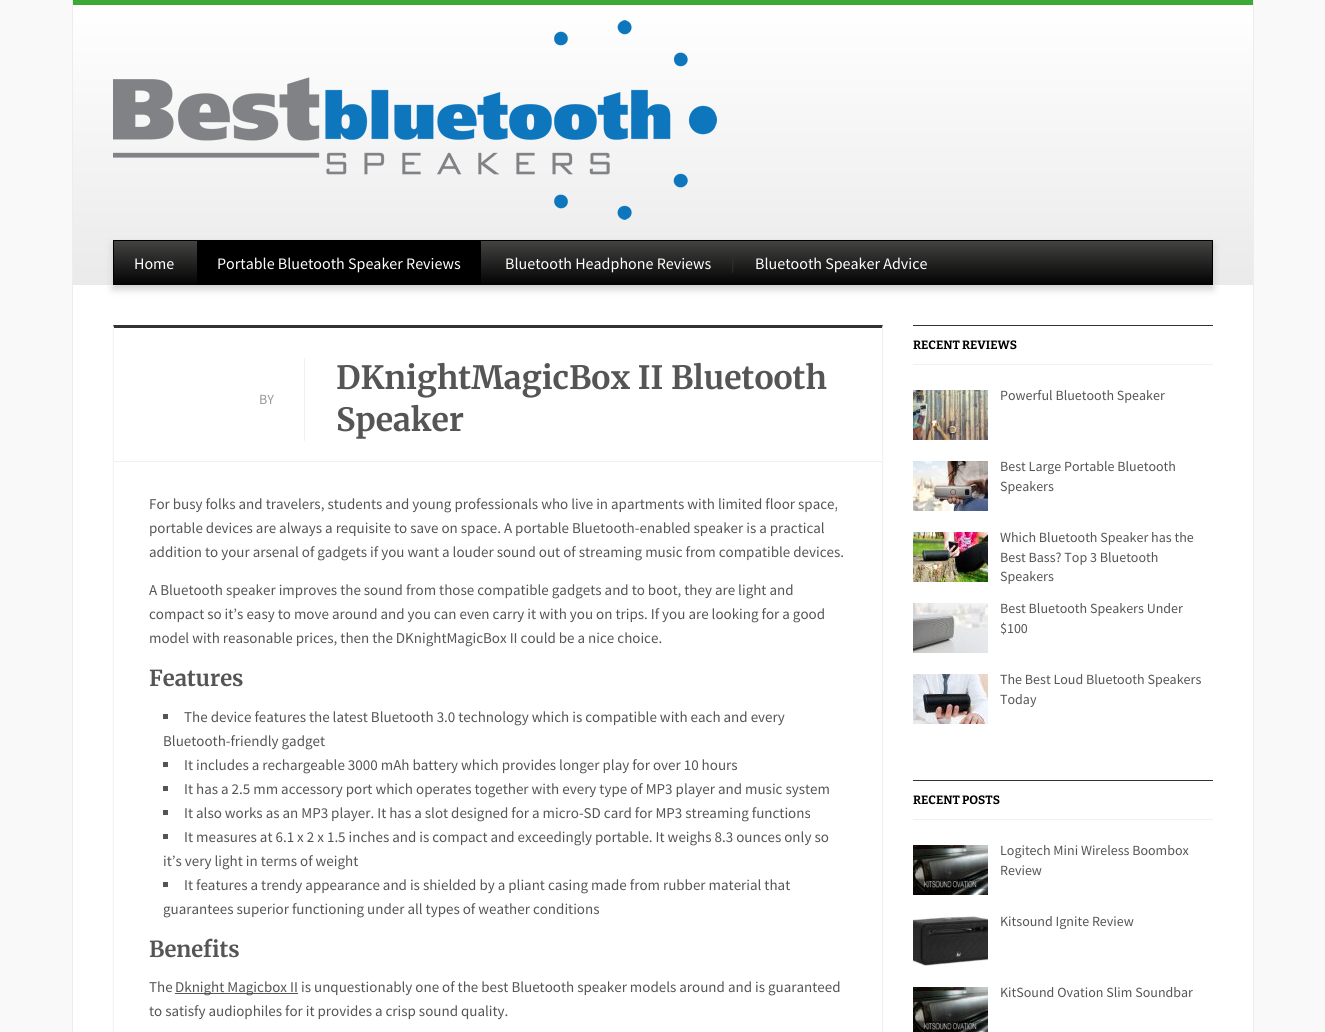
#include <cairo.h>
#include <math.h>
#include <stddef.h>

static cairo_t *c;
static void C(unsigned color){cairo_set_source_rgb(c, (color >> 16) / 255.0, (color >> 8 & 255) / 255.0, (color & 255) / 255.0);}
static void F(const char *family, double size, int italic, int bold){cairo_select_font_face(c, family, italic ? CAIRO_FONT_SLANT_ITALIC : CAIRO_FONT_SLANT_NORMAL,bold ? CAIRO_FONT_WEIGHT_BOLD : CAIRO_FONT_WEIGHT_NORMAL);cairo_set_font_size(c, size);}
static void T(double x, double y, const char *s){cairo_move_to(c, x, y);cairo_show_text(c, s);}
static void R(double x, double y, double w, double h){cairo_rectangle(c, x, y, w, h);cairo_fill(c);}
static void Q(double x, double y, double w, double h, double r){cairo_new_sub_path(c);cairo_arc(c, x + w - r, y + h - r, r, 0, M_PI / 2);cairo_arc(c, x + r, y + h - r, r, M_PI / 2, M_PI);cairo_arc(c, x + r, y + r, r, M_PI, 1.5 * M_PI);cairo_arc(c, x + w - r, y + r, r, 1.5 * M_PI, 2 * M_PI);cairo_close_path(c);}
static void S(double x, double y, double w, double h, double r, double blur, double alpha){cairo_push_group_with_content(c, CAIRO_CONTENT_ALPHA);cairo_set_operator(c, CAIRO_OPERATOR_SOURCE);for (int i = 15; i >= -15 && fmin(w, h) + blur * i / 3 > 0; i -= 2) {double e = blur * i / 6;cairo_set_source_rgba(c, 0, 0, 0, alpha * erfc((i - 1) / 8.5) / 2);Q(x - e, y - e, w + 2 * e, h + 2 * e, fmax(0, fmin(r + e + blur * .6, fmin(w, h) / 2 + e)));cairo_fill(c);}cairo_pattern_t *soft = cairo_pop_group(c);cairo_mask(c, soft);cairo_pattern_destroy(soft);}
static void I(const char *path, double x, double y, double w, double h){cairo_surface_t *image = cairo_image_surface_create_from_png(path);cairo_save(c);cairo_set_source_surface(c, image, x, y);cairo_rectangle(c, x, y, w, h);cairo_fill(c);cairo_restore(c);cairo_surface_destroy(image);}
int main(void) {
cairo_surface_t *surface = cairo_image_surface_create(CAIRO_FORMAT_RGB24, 1325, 1032);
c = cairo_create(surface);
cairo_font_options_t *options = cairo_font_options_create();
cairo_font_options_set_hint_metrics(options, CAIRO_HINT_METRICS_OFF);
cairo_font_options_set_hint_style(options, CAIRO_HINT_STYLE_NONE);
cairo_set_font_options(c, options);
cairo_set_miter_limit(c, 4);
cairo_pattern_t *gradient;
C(0xf9f9f9);
cairo_paint(c);
C(0xffffff);
R(73,285,1180,747);
C(0xeeecec);
R(1253,0,1,1032);
R(72,0,1,1032);
gradient = cairo_pattern_create_linear(663,5,663,285);
cairo_pattern_add_color_stop_rgba(gradient,0,1,1,1,1);
cairo_pattern_add_color_stop_rgba(gradient,1,0.918,0.918,0.918,1);
cairo_set_source(c,gradient);
cairo_pattern_destroy(gradient);
R(73,5,1180,280);
C(0x3aaa35);
R(73,0,1180,5);
I("1.png",113,20,604,200);
C(0xcccccc);
S(113,244,1100,45,0,4,1);
gradient = cairo_pattern_create_linear(663,241,663,285);
cairo_pattern_add_color_stop_rgba(gradient,0,0.263,0.263,0.259,1);
cairo_pattern_add_color_stop_rgba(gradient,1,0.008,0.008,0.008,1);
cairo_set_source(c,gradient);
cairo_pattern_destroy(gradient);
R(114,241,1098,44);
C(0x000000);
R(113,240,1100,1);
R(1212,240,1,45);
R(113,240,1,45);
F("Source Sans Pro",16,0,0);
C(0xffffff);
T(134,269,"Home");
C(0x000000);
R(197,241,284,44);
C(0xffffff);
T(217,269,"Portable Bluetooth Speaker Reviews");
T(505,269,"Bluetooth Headphone Reviews");
F("Source Sans Pro",15,0,0);
C(0x333333);
T(731,269,"|");
F("Source Sans Pro",16,0,0);
C(0xffffff);
T(755,269,"Bluetooth Speaker Advice");
C(0xfcfcfc);
cairo_new_path(c);
cairo_move_to(c,112,325);
cairo_line_to(c,112,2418);
cairo_line_to(c,884,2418);
cairo_line_to(c,884,325);
cairo_line_to(c,883,325);
cairo_line_to(c,883,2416);
cairo_line_to(c,113,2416);
cairo_line_to(c,113,325);
cairo_close_path(c);
cairo_fill(c);
C(0x333333);
cairo_new_path(c);
cairo_move_to(c,113,325);
cairo_line_to(c,883,325);
cairo_line_to(c,882,328);
cairo_line_to(c,114,328);
cairo_close_path(c);
cairo_fill(c);
C(0xf1f1f1);
cairo_new_path(c);
cairo_move_to(c,883,325);
cairo_line_to(c,883,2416);
cairo_line_to(c,882,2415);
cairo_line_to(c,882,328);
cairo_close_path(c);
cairo_fill(c);
cairo_new_path(c);
cairo_move_to(c,113,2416);
cairo_line_to(c,113,325);
cairo_line_to(c,114,328);
cairo_line_to(c,114,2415);
cairo_close_path(c);
cairo_fill(c);
R(304,358,1,83);
F("Source Sans Pro",14,0,0);
C(0x999999);
T(259,404,"BY");
F("Merriweather",32,0,1);
C(0x555555);
T(336,389,"DKnightMagicBox II Bluetooth");
T(336,431,"Speaker");
C(0xf1f1f1);
R(114,461,768,1);
F("Source Sans Pro",15,0,0);
C(0x555555);
T(149,509,"For busy folks and travelers, students and young professionals who live in apartments with limited floor space,");
T(149,533,"portable devices are always a requisite to save on space. A portable Bluetooth-enabled speaker is a practical");
T(149,557,"addition to your arsenal of gadgets if you want a louder sound out of streaming music from compatible devices.");
T(149,595,"A Bluetooth speaker improves the sound from those compatible gadgets and to boot, they are light and");
T(149,619,"compact so it’s easy to move around and you can even carry it with you on trips. If you are looking for a good");
T(149,643,"model with reasonable prices, then the DKnightMagicBox II could be a nice choice.");
F("Merriweather",22,0,1);
T(149,686,"Features");
R(163,714,5,5);
F("Source Sans Pro",15,0,0);
T(184,722,"The device features the latest Bluetooth 3.0 technology which is compatible with each and every");
T(163,746,"Bluetooth-friendly gadget");
R(163,762,5,5);
T(184,770,"It includes a rechargeable 3000 mAh battery which provides longer play for over 10 hours");
R(163,786,5,5);
T(184,794,"It has a 2.5 mm accessory port which operates together with every type of MP3 player and music system");
R(163,810,5,5);
T(184,818,"It also works as an MP3 player. It has a slot designed for a micro-SD card for MP3 streaming functions");
R(163,834,5,5);
T(184,842,"It measures at 6.1 x 2 x 1.5 inches and is compact and exceedingly portable. It weighs 8.3 ounces only so");
T(163,866,"it’s very light in terms of weight");
R(163,882,5,5);
T(184,890,"It features a trendy appearance and is shielded by a pliant casing made from rubber material that");
T(163,914,"guarantees superior functioning under all types of weather conditions");
F("Merriweather",22,0,1);
T(149,957,"Benefits");
F("Source Sans Pro",15,0,0);
T(149,992,"The");
C(0x565656);
R(175,993,123,1);
C(0x555555);
T(175,992,"Dknight Magicbox II");
T(301,992,"is unquestionably one of the best Bluetooth speaker models around and is guaranteed");
T(149,1016,"to satisfy audiophiles for it provides a crisp sound quality.");
C(0x333333);
R(913,325,300,1);
C(0xf1f1f1);
R(913,364,300,1);
F("Bitter",12,0,1);
C(0x000000);
T(913,349,"RECENT REVIEWS");
I("2.png",913,390,75,50);
F("Source Sans Pro",14,0,0);
C(0x555555);
T(1000,400,"Powerful Bluetooth Speaker");
I("3.png",913,461,75,50);
T(1000,471,"Best Large Portable Bluetooth");
T(1000,491,"Speakers");
I("4.png",913,532,75,50);
T(1000,542,"Which Bluetooth Speaker has the");
T(1000,562,"Best Bass? Top 3 Bluetooth");
T(1000,581,"Speakers");
I("5.png",913,603,75,50);
T(1000,613,"Best Bluetooth Speakers Under");
T(1000,633,"$100");
I("6.png",913,674,75,50);
T(1000,684,"The Best Loud Bluetooth Speakers");
T(1000,704,"Today");
C(0x333333);
R(913,780,300,1);
C(0xf1f1f1);
R(913,819,300,1);
F("Bitter",12,0,1);
C(0x000000);
T(913,804,"RECENT POSTS");
I("7.png",913,845,75,50);
F("Source Sans Pro",14,0,0);
C(0x555555);
T(1000,855,"Logitech Mini Wireless Boombox");
T(1000,875,"Review");
I("8.png",913,916,75,50);
T(1000,926,"Kitsound Ignite Review");
I("9.png",913,987,75,45);
T(1000,997,"KitSound Ovation Slim Soundbar");
cairo_surface_write_to_png(surface, "o.png");
cairo_font_options_destroy(options);
cairo_destroy(c);
cairo_surface_destroy(surface);
return 0;
}
